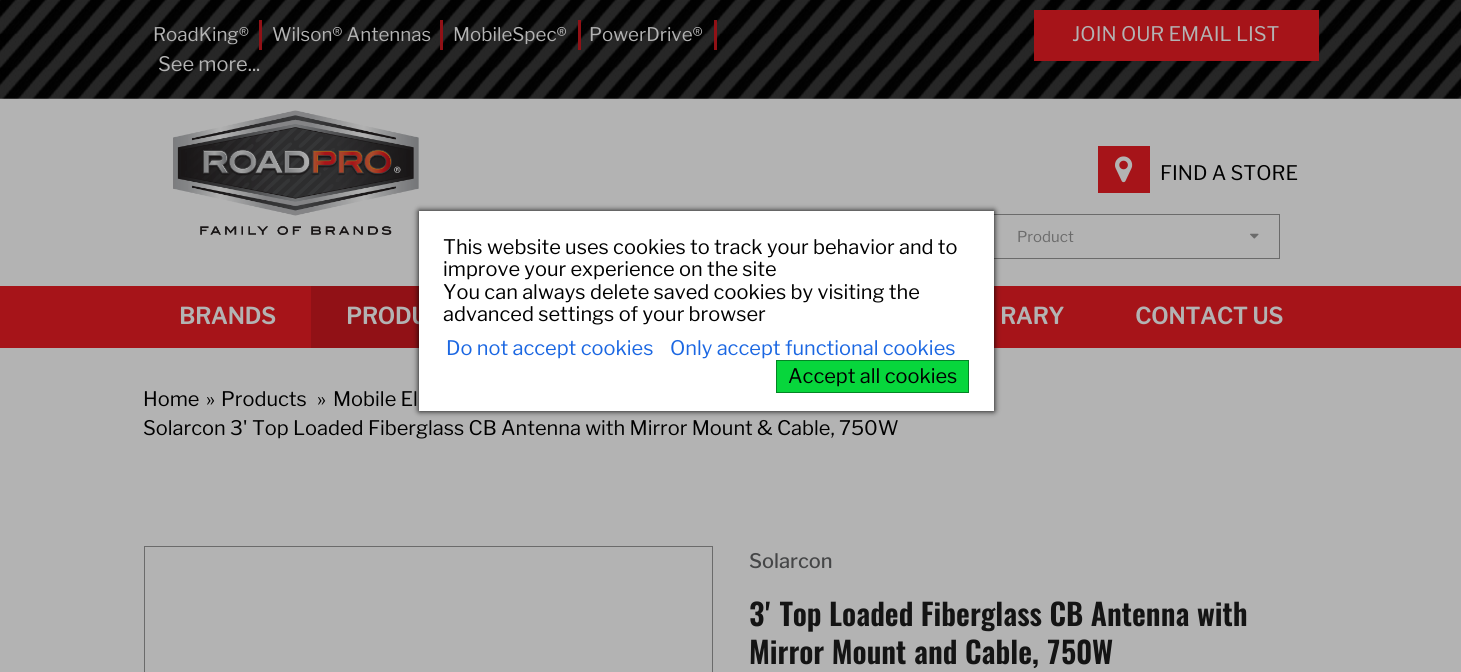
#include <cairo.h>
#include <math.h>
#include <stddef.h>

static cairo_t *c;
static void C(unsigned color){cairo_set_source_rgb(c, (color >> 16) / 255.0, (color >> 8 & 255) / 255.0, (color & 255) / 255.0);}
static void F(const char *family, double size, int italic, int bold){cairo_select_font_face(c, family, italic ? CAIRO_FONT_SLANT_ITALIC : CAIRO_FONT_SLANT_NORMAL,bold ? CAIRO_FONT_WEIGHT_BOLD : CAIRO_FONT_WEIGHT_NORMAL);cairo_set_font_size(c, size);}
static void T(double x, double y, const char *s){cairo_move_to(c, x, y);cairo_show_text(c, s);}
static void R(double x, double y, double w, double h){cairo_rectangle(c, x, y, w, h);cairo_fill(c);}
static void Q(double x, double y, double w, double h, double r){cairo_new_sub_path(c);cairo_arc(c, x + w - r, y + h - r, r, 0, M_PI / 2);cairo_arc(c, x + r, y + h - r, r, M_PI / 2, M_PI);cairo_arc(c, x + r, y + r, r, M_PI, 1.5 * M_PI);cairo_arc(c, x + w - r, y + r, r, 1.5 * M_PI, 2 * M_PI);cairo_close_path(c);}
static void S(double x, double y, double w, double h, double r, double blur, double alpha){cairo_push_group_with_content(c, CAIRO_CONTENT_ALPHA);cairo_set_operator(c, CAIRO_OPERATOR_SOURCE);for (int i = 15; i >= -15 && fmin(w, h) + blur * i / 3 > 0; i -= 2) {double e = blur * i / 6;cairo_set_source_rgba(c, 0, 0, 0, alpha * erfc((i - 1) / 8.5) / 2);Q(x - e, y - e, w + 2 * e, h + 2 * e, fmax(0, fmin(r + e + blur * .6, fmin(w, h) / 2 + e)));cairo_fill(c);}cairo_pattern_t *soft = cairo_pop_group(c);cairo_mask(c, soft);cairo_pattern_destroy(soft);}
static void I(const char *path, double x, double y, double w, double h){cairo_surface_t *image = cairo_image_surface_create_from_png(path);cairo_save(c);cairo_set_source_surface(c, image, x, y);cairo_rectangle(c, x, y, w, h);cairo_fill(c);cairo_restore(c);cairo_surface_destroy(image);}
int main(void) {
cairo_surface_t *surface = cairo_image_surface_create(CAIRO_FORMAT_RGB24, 1461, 672);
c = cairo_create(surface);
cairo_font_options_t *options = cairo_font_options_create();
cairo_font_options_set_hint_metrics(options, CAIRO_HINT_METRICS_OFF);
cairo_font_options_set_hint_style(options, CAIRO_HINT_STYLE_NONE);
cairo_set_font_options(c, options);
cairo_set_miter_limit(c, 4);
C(0xb3b3b3);
cairo_paint(c);
I("1.png",0,0,1461,99);
C(0x911116);
R(259,20,3,30);
F("Libre Franklin",18.75,0,0);
C(0xb3b3b3);
T(153,41,"RoadKing®");
C(0x911116);
R(440,20,3,30);
C(0xb3b3b3);
T(272,41,"Wilson® Antennas");
C(0x911116);
R(578,20,3,30);
C(0xb3b3b3);
T(453,41,"MobileSpec®");
C(0x911116);
R(714,20,3,30);
C(0xb3b3b3);
T(589,41,"PowerDrive®");
F("Libre Franklin",20,0,0);
T(158,71,"See more...");
C(0xa61419);
R(1034,10,285,51);
C(0xb3b3b3);
T(1072,41,"JOIN OUR EMAIL LIST");
I("2.png",173,110,246,125);
C(0xa61419);
R(1098,146,52,47);
I("3.png",1115,156,18,27);
C(0x000000);
T(1160,180,"FIND A STORE");
cairo_rectangle(c,714.5,214.5,565,44);
C(0x6b6b6b);
cairo_set_line_width(c,1);
cairo_stroke(c);
F("Libre Franklin",15,0,0);
T(1017,242,"Product");
I("4.png",1250,233,9,6);
C(0xa61419);
R(0,286,1461,62);
F("Libre Franklin",22.5,0,1);
C(0xb3b3b3);
T(179,324,"BRANDS");
C(0x911116);
R(311,286,108,62);
C(0xb3b3b3);
T(346,324,"PRODU");
T(1000,324,"RARY");
T(1135,324,"CONTACT US");
F("Libre Franklin",20,0,0);
C(0x000000);
T(143,406,"Home");
T(206,406,"»");
T(221,406,"Products");
T(317,406,"»");
T(333,406,"Mobile El");
T(143,435,"Solarcon 3' Top Loaded Fiberglass CB Antenna with Mirror Mount & Cable, 750W");
cairo_rectangle(c,144.5,546.5,568,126);
C(0x6b6b6b);
cairo_stroke(c);
F("Libre Franklin Medium",20,0,0);
C(0x454647);
T(749,568,"Solarcon");
F("Oswald SemiBold",30,0,0);
C(0x141414);
T(749,626,"3' Top Loaded Fiberglass CB Antenna with");
T(749,664,"Mirror Mount and Cable, 750W");
C(0x000000);
S(419,211,575,200,0,3,1);
C(0xffffff);
R(419,211,575,200);
F("Libre Franklin",20,0,0);
C(0x000000);
T(443,254,"This website uses cookies to track your behavior and to");
T(443,276,"improve your experience on the site");
T(443,299,"You can always delete saved cookies by visiting the");
T(443,321,"advanced settings of your browser");
C(0x1b67e2);
T(446,355,"Do not accept cookies");
T(670,355,"Only accept functional cookies");
C(0x07d63c);
cairo_rectangle(c,776.5,360.5,192,32);
cairo_fill_preserve(c);
C(0x048425);
cairo_stroke(c);
C(0x000000);
T(788,383,"Accept all cookies");
cairo_surface_write_to_png(surface, "o.png");
cairo_font_options_destroy(options);
cairo_destroy(c);
cairo_surface_destroy(surface);
return 0;
}
